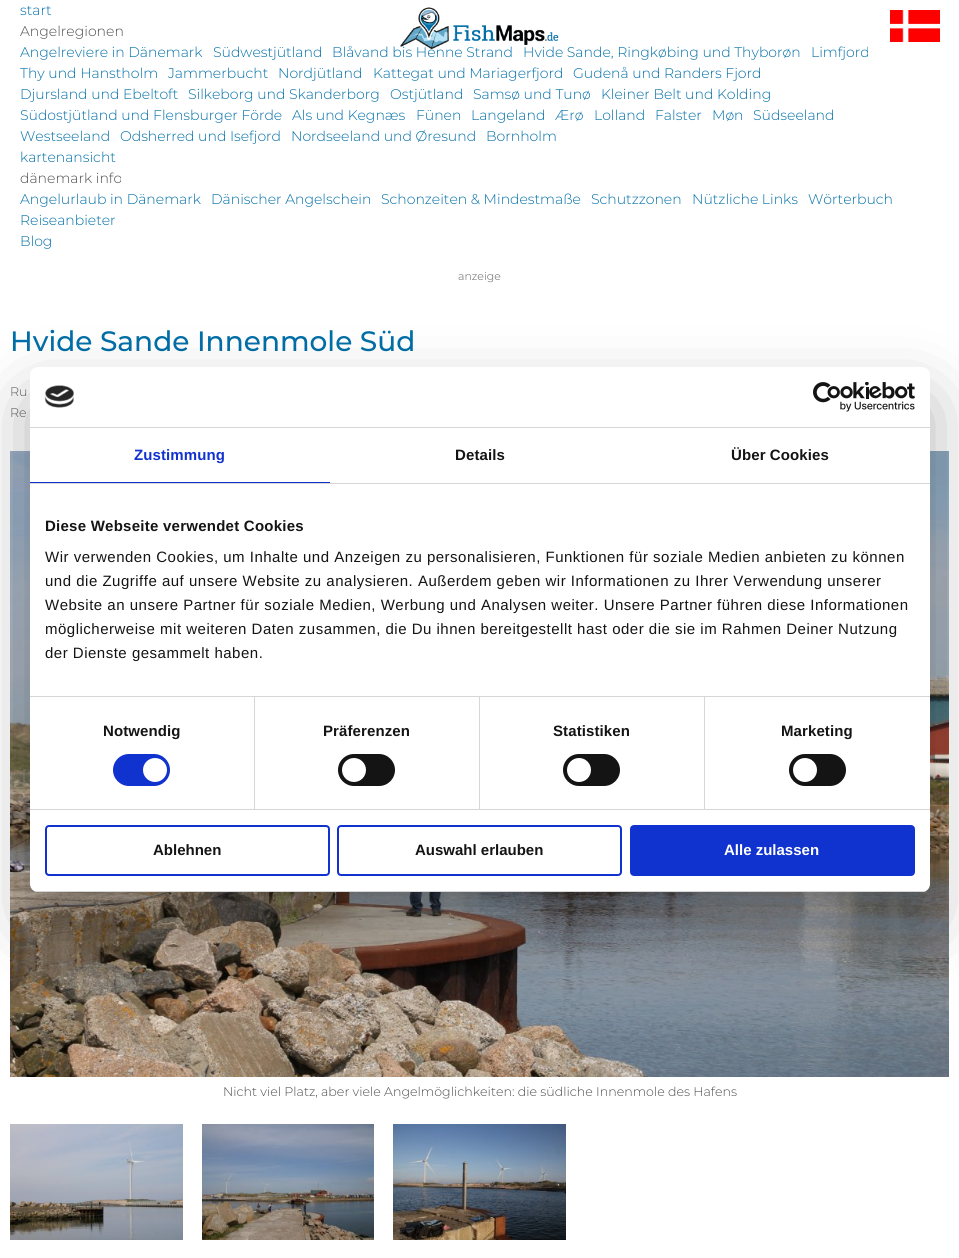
#include <cairo.h>
#include <math.h>
#include <stddef.h>

static cairo_t *c;
static void C(unsigned color){cairo_set_source_rgb(c, (color >> 16) / 255.0, (color >> 8 & 255) / 255.0, (color & 255) / 255.0);}
static void F(const char *family, double size, int italic, int bold){cairo_select_font_face(c, family, italic ? CAIRO_FONT_SLANT_ITALIC : CAIRO_FONT_SLANT_NORMAL,bold ? CAIRO_FONT_WEIGHT_BOLD : CAIRO_FONT_WEIGHT_NORMAL);cairo_set_font_size(c, size);}
static void T(double x, double y, const char *s){cairo_move_to(c, x, y);cairo_show_text(c, s);}
static void L(double x, double y, const char *s, double letter, double word){cairo_move_to(c, x, y);while (*s) {char ch[5] = {0};int n = 0;do ch[n++] = *s++; while ((*s & 0xC0) == 0x80);cairo_show_text(c, ch);cairo_rel_move_to(c, letter + word * (*ch == ' '), 0);}}
static void R(double x, double y, double w, double h){cairo_rectangle(c, x, y, w, h);cairo_fill(c);}
static void Q(double x, double y, double w, double h, double r){cairo_new_sub_path(c);cairo_arc(c, x + w - r, y + h - r, r, 0, M_PI / 2);cairo_arc(c, x + r, y + h - r, r, M_PI / 2, M_PI);cairo_arc(c, x + r, y + r, r, M_PI, 1.5 * M_PI);cairo_arc(c, x + w - r, y + r, r, 1.5 * M_PI, 2 * M_PI);cairo_close_path(c);}
static void S(double x, double y, double w, double h, double r, double blur, double alpha){cairo_push_group_with_content(c, CAIRO_CONTENT_ALPHA);cairo_set_operator(c, CAIRO_OPERATOR_SOURCE);for (int i = 15; i >= -15 && fmin(w, h) + blur * i / 3 > 0; i -= 2) {double e = blur * i / 6;cairo_set_source_rgba(c, 0, 0, 0, alpha * erfc((i - 1) / 8.5) / 2);Q(x - e, y - e, w + 2 * e, h + 2 * e, fmax(0, fmin(r + e + blur * .6, fmin(w, h) / 2 + e)));cairo_fill(c);}cairo_pattern_t *soft = cairo_pop_group(c);cairo_mask(c, soft);cairo_pattern_destroy(soft);}
static void I(const char *path, double x, double y, double w, double h){cairo_surface_t *image = cairo_image_surface_create_from_png(path);cairo_save(c);cairo_set_source_surface(c, image, x, y);cairo_rectangle(c, x, y, w, h);cairo_fill(c);cairo_restore(c);cairo_surface_destroy(image);}
int main(void) {
cairo_surface_t *surface = cairo_image_surface_create(CAIRO_FORMAT_RGB24, 959, 1258);
c = cairo_create(surface);
cairo_font_options_t *options = cairo_font_options_create();
cairo_font_options_set_hint_metrics(options, CAIRO_HINT_METRICS_OFF);
cairo_font_options_set_hint_style(options, CAIRO_HINT_STYLE_NONE);
cairo_set_font_options(c, options);
cairo_set_miter_limit(c, 4);
C(0xffffff);
cairo_paint(c);
F("Montserrat Light",14,0,0);
C(0x006ea7);
T(20,15,"start");
C(0x4d4d4d);
T(20,36,"Angelregionen");
C(0x006ea7);
T(20,57,"Angelreviere in Dänemark");
T(213,57,"Südwestjütland");
T(332,57,"Blåvand bis Henne Strand");
T(523,57,"Hvide Sande, Ringkøbing und Thyborøn");
T(811,57,"Limfjord");
T(20,78,"Thy und Hanstholm");
T(168,78,"Jammerbucht");
T(278,78,"Nordjütland");
T(373,78,"Kattegat und Mariagerfjord");
T(573,78,"Gudenå und Randers Fjord");
T(20,99,"Djursland und Ebeltoft");
T(188,99,"Silkeborg und Skanderborg");
T(390,99,"Ostjütland");
T(473,99,"Samsø und Tunø");
T(601,99,"Kleiner Belt und Kolding");
T(20,120,"Südostjütland und Flensburger Förde");
T(292,120,"Als und Kegnæs");
T(416,120,"Fünen");
T(471,120,"Langeland");
T(555,120,"Ærø");
T(594,120,"Lolland");
T(655,120,"Falster");
T(712,120,"Møn");
T(753,120,"Südseeland");
T(20,141,"Westseeland");
T(120,141,"Odsherred und Isefjord");
T(291,141,"Nordseeland und Øresund");
T(486,141,"Bornholm");
T(20,162,"kartenansicht");
C(0x4d4d4d);
T(20,183,"dänemark info");
C(0x006ea7);
T(20,204,"Angelurlaub in Dänemark");
T(211,204,"Dänischer Angelschein");
T(381,204,"Schonzeiten & Mindestmaße");
T(591,204,"Schutzzonen");
T(692,204,"Nützliche Links");
T(808,204,"Wörterbuch");
T(20,225,"Reiseanbieter");
T(20,246,"Blog");
I("1.png",400,7,159,42);
I("2.png",890,10,50,32);
F("Montserrat Light",11,0,0);
C(0x5e5e5e);
T(458,280,"anzeige");
F("Montserrat Medium",28,0,0);
C(0x006ea7);
T(10,351,"Hvide Sande Innenmole Süd");
F("Montserrat Light",12.6,0,0);
C(0x5e5e5e);
T(10,396,"Ru");
T(10,417,"Re");
I("3.png",10,451,939,626);
C(0x4d4d4d);
T(223,1096,"Nicht viel Platz, aber viele Angelmöglichkeiten: die südliche Innenmole des Hafens");
I("4.png",10,1124,173,116);
I("5.png",202,1124,172,116);
I("6.png",393,1124,173,116);
C(0x000000);
S(30,399,900,525,8,34,.3);
C(0xffffff);
Q(30,367,900,525,8);
cairo_fill(c);
C(0xd6d6d6);
R(30,427,900,1);
I("7.png",44,385,30,23);
I("8.png",813,382,102,30);
R(30,483,900,1);
C(0x1032cf);
R(30,482,300,1);
F("Liberation Sans",15,0,1);
L(134,460,"Zustimmung",.1,0);
C(0x141414);
L(455,460,"Details",.1,0);
L(731,460,"Über Cookies",.1,0);
C(0xd6d6d6);
R(30,696,900,1);
C(0x141414);
L(45,531,"Diese Webseite verwendet Cookies",.25,0);
F("Liberation Sans",15,0,0);
L(45,562,"Wir verwenden Cookies, um Inhalte und Anzeigen zu personalisieren, Funktionen für soziale Medien anbieten zu können",.5,0);
L(45,586,"und die Zugriffe auf unsere Website zu analysieren. Außerdem geben wir Informationen zu Ihrer Verwendung unserer",.5,0);
L(45,610,"Website an unsere Partner für soziale Medien, Werbung und Analysen weiter. Unsere Partner führen diese Informationen",.5,0);
L(45,634,"möglicherweise mit weiteren Daten zusammen, die Du ihnen bereitgestellt hast oder die sie im Rahmen Deiner Nutzung",.5,0);
L(45,658,"der Dienste gesammelt haben.",.5,0);
C(0xd6d6d6);
R(30,809,900,1);
R(254,697,1,112);
F("Liberation Sans",15,0,1);
C(0x141414);
L(103,736,"Notwendig",.1,0);
C(0x1032cf);
Q(113,754,57,32,16);
cairo_fill(c);
C(0xffffff);
cairo_arc(c,155,770,12,0,2 * M_PI);
cairo_fill(c);
C(0xd6d6d6);
R(479,697,1,112);
C(0x141414);
L(323,736,"Präferenzen",.1,0);
Q(338,754,57,32,16);
cairo_fill(c);
C(0xffffff);
cairo_arc(c,354,770,12,0,2 * M_PI);
cairo_fill(c);
C(0xd6d6d6);
R(704,697,1,112);
C(0x141414);
L(553,736,"Statistiken",.1,0);
Q(563,754,57,32,16);
cairo_fill(c);
C(0xffffff);
cairo_arc(c,579,770,12,0,2 * M_PI);
cairo_fill(c);
C(0x141414);
L(781,736,"Marketing",.1,0);
Q(789,754,57,32,16);
cairo_fill(c);
C(0xffffff);
cairo_arc(c,805,770,12,0,2 * M_PI);
cairo_fill(c);
cairo_save(c);
Q(30,367,900,525,8);
cairo_clip(c);
C(0xd6d6d6);
R(30,891,900,1);
cairo_restore(c);
Q(46,826,283,49,3);
C(0x1032cf);
cairo_stroke(c);
C(0x141414);
T(153,855,"Ablehnen");
Q(338,826,283,49,3);
C(0x1032cf);
cairo_stroke(c);
C(0x141414);
T(415,855,"Auswahl erlauben");
C(0x1032cf);
Q(631,826,283,49,3);
cairo_fill_preserve(c);
cairo_stroke(c);
C(0xffffff);
T(724,855,"Alle zulassen");
cairo_surface_write_to_png(surface, "o.png");
cairo_font_options_destroy(options);
cairo_destroy(c);
cairo_surface_destroy(surface);
return 0;
}
